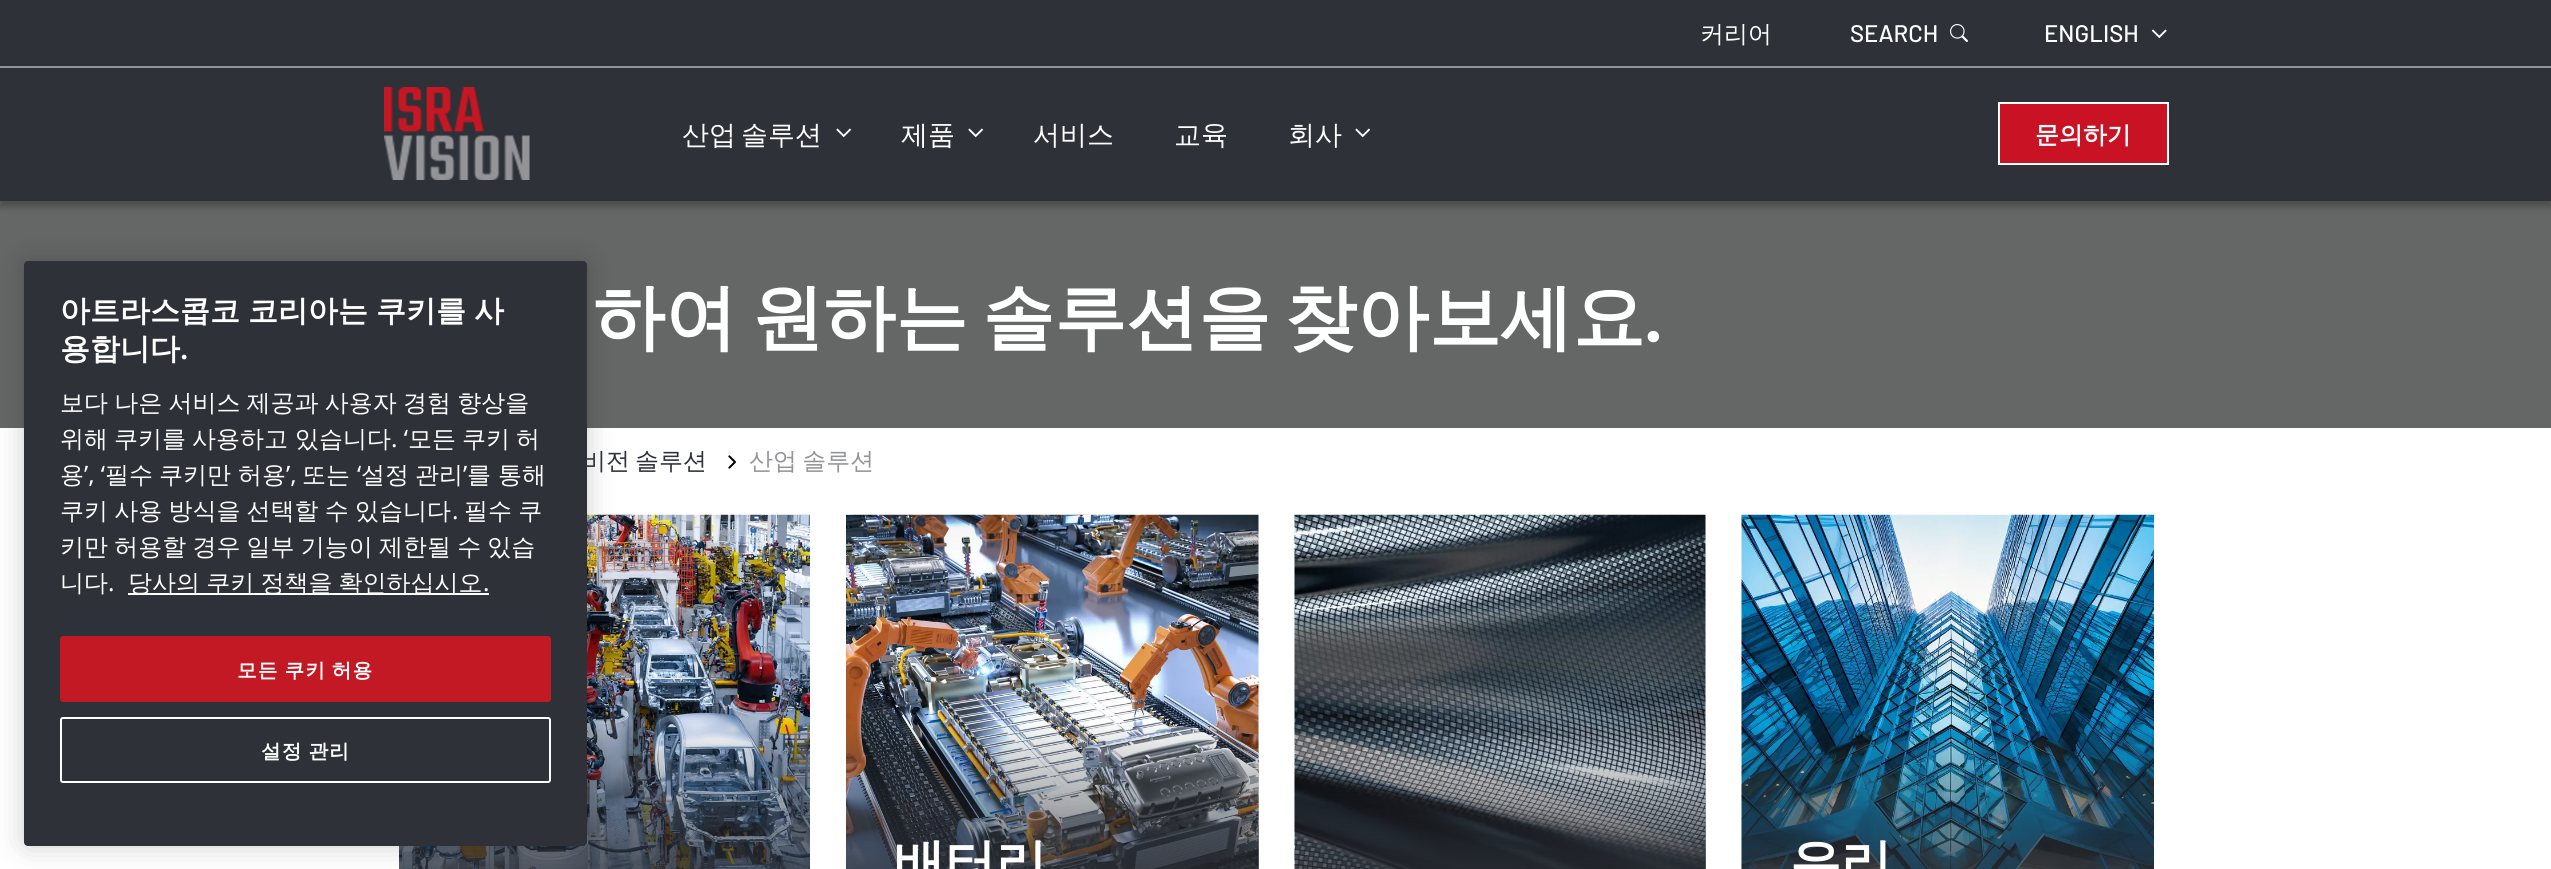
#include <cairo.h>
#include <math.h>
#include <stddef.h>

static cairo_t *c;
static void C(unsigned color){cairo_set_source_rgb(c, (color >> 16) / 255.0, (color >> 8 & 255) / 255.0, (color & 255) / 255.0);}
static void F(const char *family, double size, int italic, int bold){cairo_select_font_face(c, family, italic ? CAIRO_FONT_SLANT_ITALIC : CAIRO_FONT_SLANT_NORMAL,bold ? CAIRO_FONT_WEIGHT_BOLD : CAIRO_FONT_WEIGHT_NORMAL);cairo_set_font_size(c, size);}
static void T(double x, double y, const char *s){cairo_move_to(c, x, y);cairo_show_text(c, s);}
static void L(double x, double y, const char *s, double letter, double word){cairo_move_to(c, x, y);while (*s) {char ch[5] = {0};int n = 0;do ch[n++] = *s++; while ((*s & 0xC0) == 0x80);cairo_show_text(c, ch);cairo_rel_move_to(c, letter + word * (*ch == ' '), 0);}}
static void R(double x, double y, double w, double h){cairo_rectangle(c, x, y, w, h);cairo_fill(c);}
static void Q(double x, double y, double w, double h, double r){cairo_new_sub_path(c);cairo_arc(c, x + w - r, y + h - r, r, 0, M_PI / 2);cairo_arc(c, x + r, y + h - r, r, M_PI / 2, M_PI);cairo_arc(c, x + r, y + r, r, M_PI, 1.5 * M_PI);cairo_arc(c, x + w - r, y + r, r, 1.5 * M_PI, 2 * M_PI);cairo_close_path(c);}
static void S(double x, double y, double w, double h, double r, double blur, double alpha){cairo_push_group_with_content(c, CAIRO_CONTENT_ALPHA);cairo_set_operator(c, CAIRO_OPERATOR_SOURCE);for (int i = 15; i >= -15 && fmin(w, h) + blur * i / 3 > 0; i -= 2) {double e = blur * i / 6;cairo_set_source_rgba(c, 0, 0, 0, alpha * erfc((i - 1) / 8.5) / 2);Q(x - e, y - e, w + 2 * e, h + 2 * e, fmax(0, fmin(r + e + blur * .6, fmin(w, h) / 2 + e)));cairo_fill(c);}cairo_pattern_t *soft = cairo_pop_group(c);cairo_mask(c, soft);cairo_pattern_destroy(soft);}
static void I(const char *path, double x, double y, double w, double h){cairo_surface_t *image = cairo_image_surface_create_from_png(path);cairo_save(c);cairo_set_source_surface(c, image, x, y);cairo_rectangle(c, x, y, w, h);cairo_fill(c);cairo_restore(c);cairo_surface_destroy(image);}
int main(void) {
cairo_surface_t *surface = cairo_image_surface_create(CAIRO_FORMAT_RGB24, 2551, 869);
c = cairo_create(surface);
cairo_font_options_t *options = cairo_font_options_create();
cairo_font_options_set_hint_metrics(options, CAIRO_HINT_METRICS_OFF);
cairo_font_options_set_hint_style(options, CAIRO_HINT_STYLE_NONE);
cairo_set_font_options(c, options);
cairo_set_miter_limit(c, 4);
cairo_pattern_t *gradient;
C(0xffffff);
cairo_paint(c);
C(0x656767);
R(0,201,2551,227);
C(0x000000);
S(0,6,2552,201,0,3,.25);
C(0x2e3138);
R(0,0,2551,201);
I("1.png",384,87,146,93);
C(0x929497);
R(0,66,2551,2);
F("WenQuanYi Zen Hei Medium",24,0,0);
C(0xffffff);
T(1700,42,"커리어");
I("2.png",1950,24,18,18);
F("Barlow Medium",24,0,0);
T(1850,42,"SEARCH");
T(2044,42,"ENGLISH");
I("3.png",2151,29,16,10);
F("WenQuanYi Zen Hei Medium",27,0,0);
L(682,144,"산업 솔루션",0,-3);
I("4.png",836,128,16,10);
T(901,144,"제품");
I("4.png",968,128,16,10);
T(1033,144,"서비스");
T(1174,144,"교육");
T(1288,144,"회사");
I("4.png",1355,128,16,10);
C(0xc91324);
cairo_rectangle(c,1999,103,169,61);
cairo_fill_preserve(c);
C(0xffffff);
cairo_stroke(c);
F("WenQuanYi Zen Hei",24,0,1);
T(2035,143,"문의하기");
I("6.png",399,514,411,355);
C(0x000000);
S(24,261,563,585,4,13.5,.2);
C(0x2e3138);
Q(24,261,563,585,4);
cairo_fill(c);
F("WenQuanYi Zen Hei",30,0,1);
C(0xffffff);
L(60,321,"아트라스콥코 코리아는 쿠키를 사",0,-1);
T(60,359,"용합니다");
F("Noto Sans SemiBold",30,0,0);
T(180,359,".");
F("WenQuanYi Zen Hei Medium",24,0,0);
L(60,411,"보다 나은 서비스 제공과 사용자 경험 향상을",0,-1);
T(60,447,"위해");
T(114,447,"쿠키를");
T(192,447,"사용하고");
T(295,447,"있습니다");
F("Noto Sans",24,0,0);
T(391,447,". ‘");
F("WenQuanYi Zen Hei Medium",24,0,0);
T(408,447,"모든");
T(462,447,"쿠키");
T(516,447,"허");
T(60,483,"용");
F("Noto Sans",24,0,0);
T(84,483,"’, ‘");
F("WenQuanYi Zen Hei Medium",24,0,0);
T(105,483,"필수");
T(159,483,"쿠키만");
T(238,483,"허용");
F("Noto Sans",24,0,0);
T(286,483,"’,");
F("WenQuanYi Zen Hei Medium",24,0,0);
T(302,483,"또는");
F("Noto Sans",24,0,0);
T(357,483,"‘");
F("WenQuanYi Zen Hei Medium",24,0,0);
T(361,483,"설정");
T(415,483,"관리");
F("Noto Sans",24,0,0);
T(463,483,"’");
F("WenQuanYi Zen Hei Medium",24,0,0);
T(467,483,"를");
T(498,483,"통해");
L(60,519,"쿠키 사용 방식을 선택할 수 있습니다",0,-1);
F("Noto Sans",24,0,0);
T(452,519,".");
F("WenQuanYi Zen Hei Medium",24,0,0);
L(464,519,"필수 쿠",0,-1);
L(60,555,"키만 허용할 경우 일부 기능이 제한될 수 있습",0,-1);
T(60,591,"니다");
F("Noto Sans",24,0,0);
T(108,591,".");
R(128,593,361,2);
F("WenQuanYi Zen Hei Medium",24,0,0);
L(128,591,"당사의 쿠키 정책을 확인하십시오",0,-1);
F("Noto Sans",24,0,0);
T(483,591,".");
C(0xc31924);
Q(61,637,489,64,2);
cairo_fill_preserve(c);
cairo_stroke(c);
F("WenQuanYi Zen Hei",19.75,0,1);
C(0xffffff);
L(237,677,"모든 쿠키 허용",1,-1);
Q(61,718,489,64,2);
cairo_stroke(c);
L(261,758,"설정 관리",1,-1);
F("WenQuanYi Zen Hei",72,0,1);
L(593,342,"하여 원하는 솔루션을 찾아보세요",0,-7);
F("Barlow",72,0,1);
T(1644,342,".");
F("WenQuanYi Zen Hei Medium",24,0,0);
C(0x2e3138);
T(582,469,"비전");
T(635,469,"솔루션");
I("5.png",728,455,8,14);
C(0x929497);
L(749,469,"산업 솔루션",0,-2);
I("7.png",846,514,413,355);
gradient = cairo_pattern_create_linear(1052,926,1052,515);
cairo_pattern_add_color_stop_rgba(gradient,0,0.18,0.192,0.22,1);
cairo_pattern_add_color_stop_rgba(gradient,.5,0.18,0.192,0.22,0);
cairo_set_source(c,gradient);
cairo_pattern_destroy(gradient);
R(846,725,413,144);
F("WenQuanYi Zen Hei",51,0,1);
C(0xffffff);
T(894,880,"배터리");
I("8.png",1294,514,412,355);
gradient = cairo_pattern_create_linear(1500,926,1500,515);
cairo_pattern_add_color_stop_rgba(gradient,0,0.18,0.192,0.22,1);
cairo_pattern_add_color_stop_rgba(gradient,.5,0.18,0.192,0.22,0);
cairo_set_source(c,gradient);
cairo_pattern_destroy(gradient);
R(1295,725,411,144);
I("9.png",1741,514,413,355);
C(0xffffff);
T(1790,880,"유리");
cairo_surface_write_to_png(surface, "o.png");
cairo_font_options_destroy(options);
cairo_destroy(c);
cairo_surface_destroy(surface);
return 0;
}
